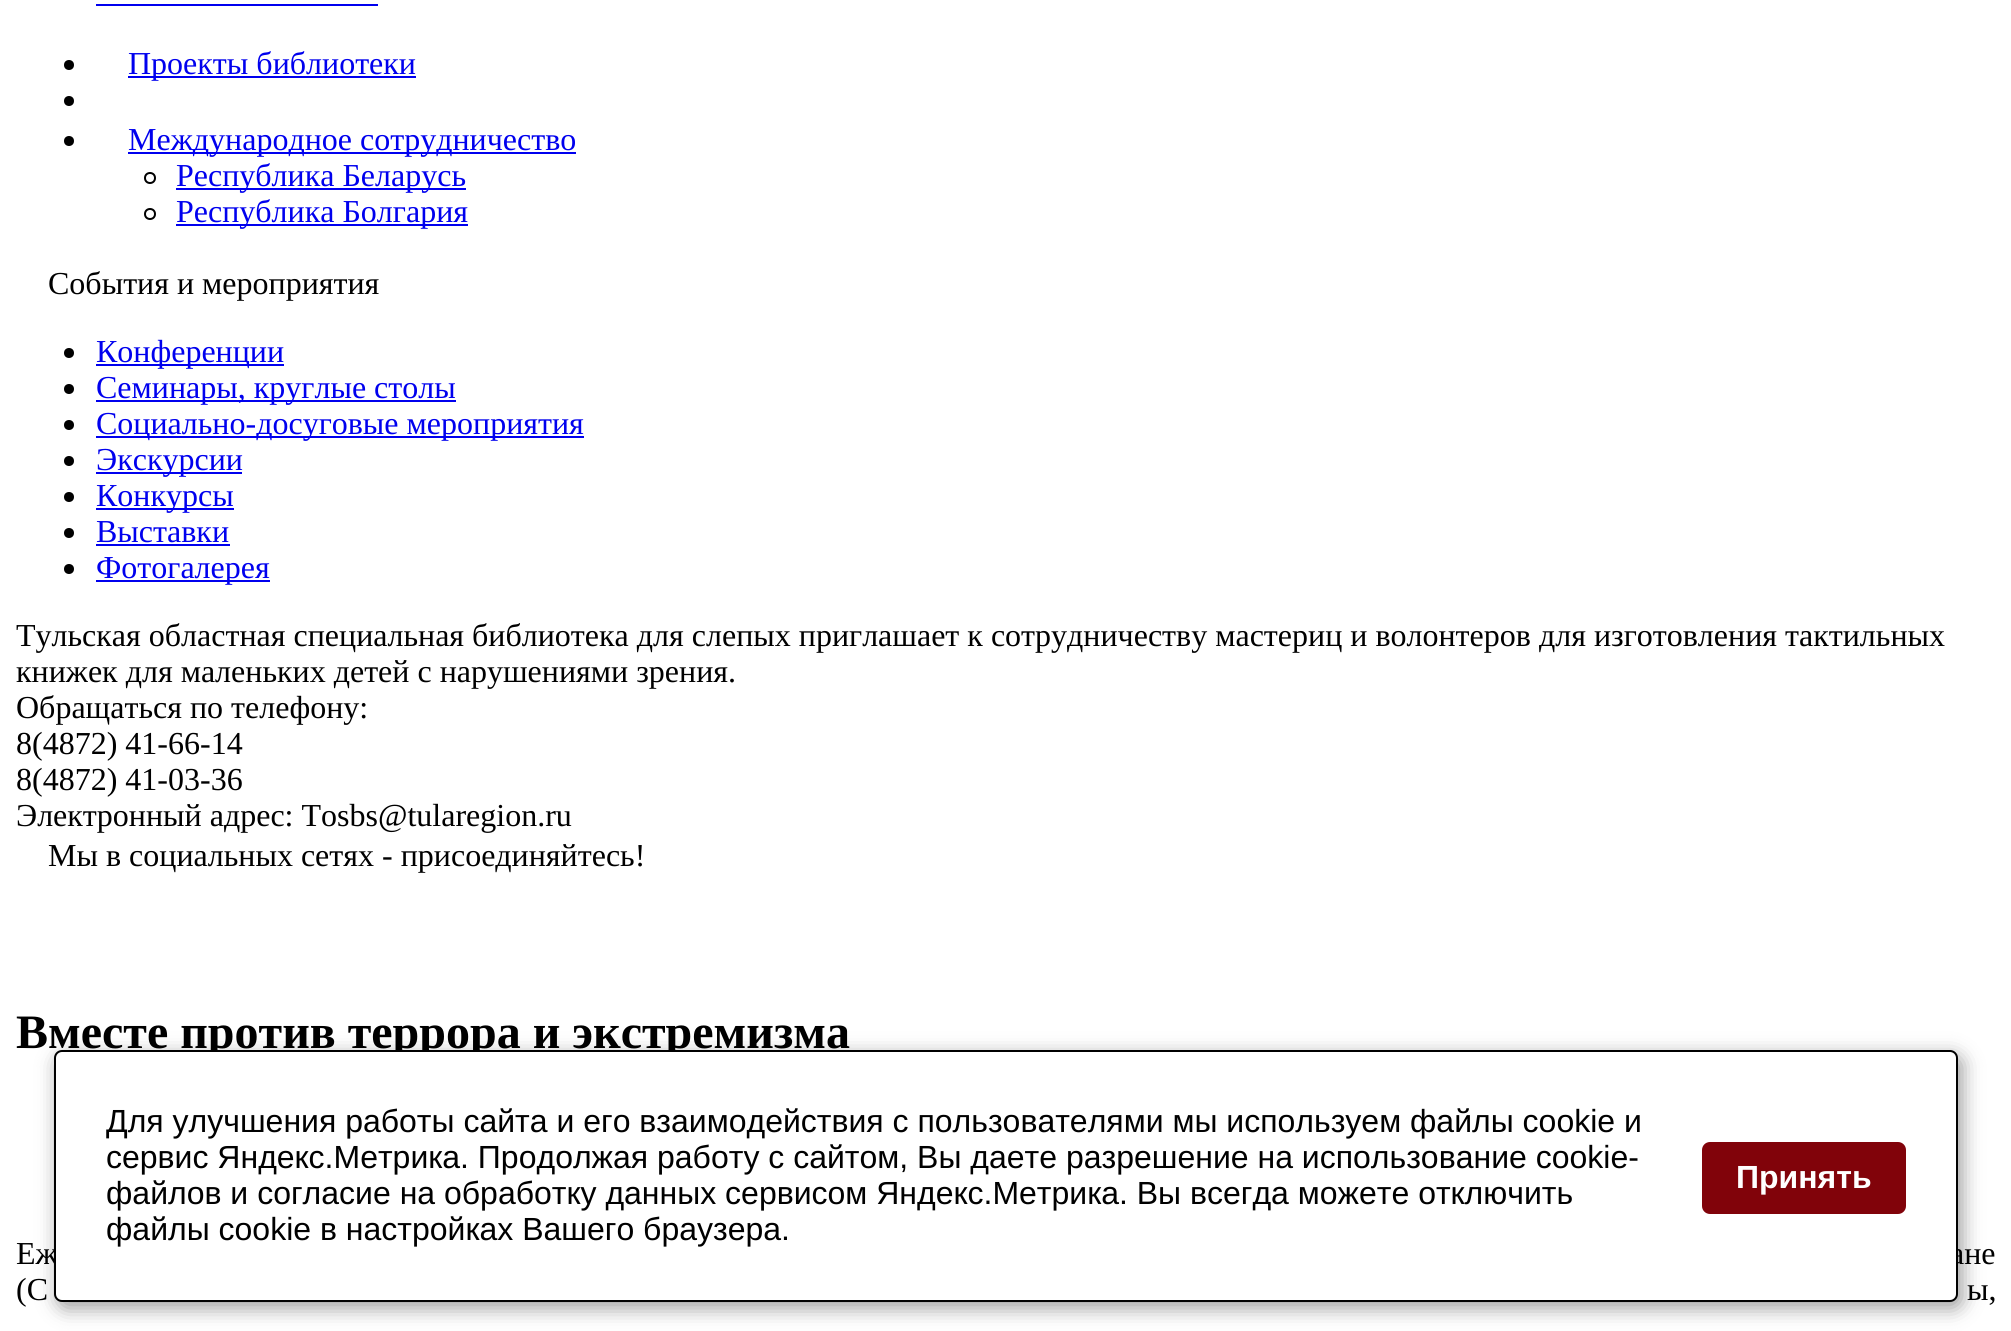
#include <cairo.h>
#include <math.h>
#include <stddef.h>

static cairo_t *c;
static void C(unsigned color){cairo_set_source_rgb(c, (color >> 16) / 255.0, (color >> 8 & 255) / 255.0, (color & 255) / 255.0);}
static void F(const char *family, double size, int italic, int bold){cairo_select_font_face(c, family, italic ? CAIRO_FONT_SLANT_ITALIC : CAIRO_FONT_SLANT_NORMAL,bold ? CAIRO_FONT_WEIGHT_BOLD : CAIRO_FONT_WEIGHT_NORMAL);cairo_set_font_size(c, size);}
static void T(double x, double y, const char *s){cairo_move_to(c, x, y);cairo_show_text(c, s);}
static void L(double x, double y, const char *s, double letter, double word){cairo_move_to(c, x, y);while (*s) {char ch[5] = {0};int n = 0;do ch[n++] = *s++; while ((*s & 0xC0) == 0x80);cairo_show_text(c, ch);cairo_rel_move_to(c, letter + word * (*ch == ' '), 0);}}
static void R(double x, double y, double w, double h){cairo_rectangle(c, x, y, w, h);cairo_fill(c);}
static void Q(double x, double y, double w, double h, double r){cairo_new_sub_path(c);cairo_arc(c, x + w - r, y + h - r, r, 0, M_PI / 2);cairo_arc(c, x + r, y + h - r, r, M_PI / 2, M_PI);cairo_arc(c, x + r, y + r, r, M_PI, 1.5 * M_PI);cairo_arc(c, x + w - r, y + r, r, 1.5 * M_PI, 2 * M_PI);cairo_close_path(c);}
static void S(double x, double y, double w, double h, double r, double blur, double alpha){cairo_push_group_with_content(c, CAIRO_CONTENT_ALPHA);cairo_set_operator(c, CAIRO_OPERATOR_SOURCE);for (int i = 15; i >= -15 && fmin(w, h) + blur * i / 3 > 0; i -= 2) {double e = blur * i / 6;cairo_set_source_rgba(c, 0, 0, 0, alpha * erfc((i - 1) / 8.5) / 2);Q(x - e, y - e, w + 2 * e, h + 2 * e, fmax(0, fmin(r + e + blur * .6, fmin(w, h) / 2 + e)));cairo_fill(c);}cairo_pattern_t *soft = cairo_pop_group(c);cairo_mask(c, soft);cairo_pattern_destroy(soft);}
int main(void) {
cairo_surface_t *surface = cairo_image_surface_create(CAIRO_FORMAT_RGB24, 2011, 1331);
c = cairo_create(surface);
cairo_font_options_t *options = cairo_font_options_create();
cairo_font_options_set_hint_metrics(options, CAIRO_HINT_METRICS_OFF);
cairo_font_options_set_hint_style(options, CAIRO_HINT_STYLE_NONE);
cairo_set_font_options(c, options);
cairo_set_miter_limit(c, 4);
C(0xffffff);
cairo_paint(c);
C(0x0000ee);
R(96,4,282,2);
C(0x000000);
cairo_arc(c,69,65,5,0,2 * M_PI);
cairo_fill(c);
C(0x0000ee);
R(128,76,288,2);
F("Liberation Serif",32,0,0);
T(128,74,"Проекты библиотеки");
C(0x000000);
cairo_new_path(c);
cairo_arc(c,69,101,5,0,2 * M_PI);
cairo_fill(c);
cairo_arc(c,69,141,5,0,2 * M_PI);
cairo_fill(c);
C(0x0000ee);
R(128,152,448,2);
T(128,150,"Международное сотрудничество");
cairo_new_path(c);
cairo_arc(c,150,178,5,0,2 * M_PI);
C(0x000000);
cairo_stroke(c);
C(0x0000ee);
R(176,188,290,2);
T(176,186,"Республика Беларусь");
cairo_new_path(c);
cairo_arc(c,150,214,5,0,2 * M_PI);
C(0x000000);
cairo_stroke(c);
C(0x0000ee);
R(176,224,292,2);
T(176,222,"Республика Болгария");
C(0x000000);
T(48,294,"События и мероприятия");
cairo_new_path(c);
cairo_arc(c,69,353,5,0,2 * M_PI);
cairo_fill(c);
C(0x0000ee);
R(96,364,188,2);
T(96,362,"Конференции");
C(0x000000);
cairo_new_path(c);
cairo_arc(c,69,389,5,0,2 * M_PI);
cairo_fill(c);
C(0x0000ee);
R(96,400,360,2);
T(96,398,"Семинары, круглые столы");
C(0x000000);
cairo_new_path(c);
cairo_arc(c,69,425,5,0,2 * M_PI);
cairo_fill(c);
C(0x0000ee);
R(96,436,488,2);
T(96,434,"Социально-досуговые мероприятия");
C(0x000000);
cairo_new_path(c);
cairo_arc(c,69,461,5,0,2 * M_PI);
cairo_fill(c);
C(0x0000ee);
R(96,472,146,2);
T(96,470,"Экскурсии");
C(0x000000);
cairo_new_path(c);
cairo_arc(c,69,497,5,0,2 * M_PI);
cairo_fill(c);
C(0x0000ee);
R(96,508,138,2);
T(96,506,"Конкурсы");
C(0x000000);
cairo_new_path(c);
cairo_arc(c,69,533,5,0,2 * M_PI);
cairo_fill(c);
C(0x0000ee);
T(96,542,"Выставки");
R(96,544,134,2);
C(0x000000);
cairo_new_path(c);
cairo_arc(c,69,569,5,0,2 * M_PI);
cairo_fill(c);
C(0x0000ee);
R(96,580,174,2);
T(96,578,"Фотогалерея");
C(0x000000);
T(16,646,"Тульская областная специальная библиотека для слепых приглашает к сотрудничеству мастериц и волонтеров для изготовления тактильных");
T(16,682,"книжек для маленьких детей с нарушениями зрения.");
T(16,718,"Обращаться по телефону:");
T(16,754,"8(4872) 41-66-14");
T(16,790,"8(4872) 41-03-36");
T(16,826,"Электронный адрес: Tosbs@tularegion.ru");
T(48,866,"Мы в социальных сетях - присоединяйтесь!");
F("Liberation Serif",48,0,1);
T(16,1048,"Вместе против террора и экстремизма");
F("Liberation Serif",32,0,0);
T(16,1264,"Еж");
T(1950,1264,"ане");
L(16,1300,"(С",0,3);
L(1967,1300,"ы,",0,3);
C(0x000000);
S(58,1056,1904,252,8,10,.4);
C(0xffffff);
Q(55,1051,1902,250,7);
cairo_fill_preserve(c);
C(0x000000);
cairo_stroke(c);
F("Liberation Sans",32,0,0);
T(106,1132,"Для улучшения работы сайта и его взаимодействия с пользователями мы используем файлы cookie и");
T(106,1168,"сервис Яндекс.Метрика. Продолжая работу с сайтом, Вы даете разрешение на использование cookie-");
T(106,1204,"файлов и согласие на обработку данных сервисом Яндекс.Метрика. Вы всегда можете отключить");
T(106,1240,"файлы cookie в настройках Вашего браузера.");
C(0x81030a);
Q(1703,1143,202,70,7);
cairo_fill_preserve(c);
cairo_stroke(c);
F("Liberation Sans",32,0,1);
C(0xffffff);
T(1736,1188,"Принять");
cairo_surface_write_to_png(surface, "o.png");
cairo_font_options_destroy(options);
cairo_destroy(c);
cairo_surface_destroy(surface);
return 0;
}
